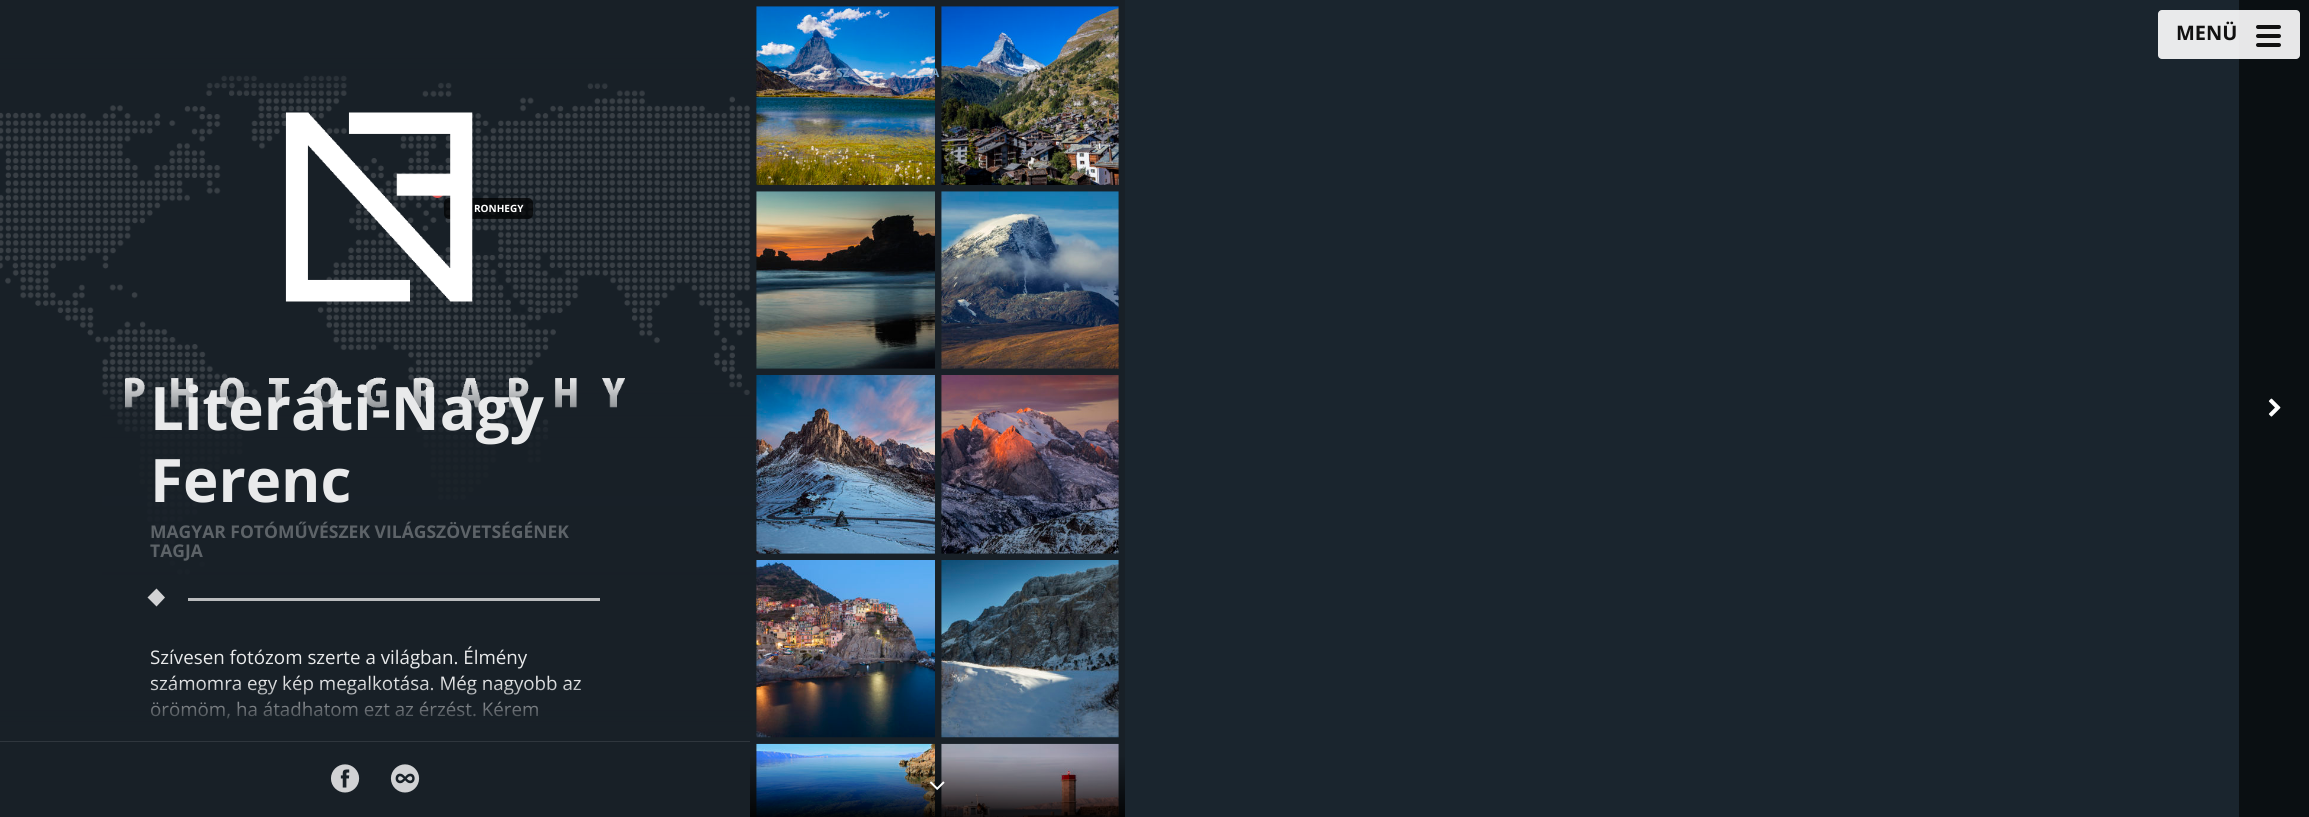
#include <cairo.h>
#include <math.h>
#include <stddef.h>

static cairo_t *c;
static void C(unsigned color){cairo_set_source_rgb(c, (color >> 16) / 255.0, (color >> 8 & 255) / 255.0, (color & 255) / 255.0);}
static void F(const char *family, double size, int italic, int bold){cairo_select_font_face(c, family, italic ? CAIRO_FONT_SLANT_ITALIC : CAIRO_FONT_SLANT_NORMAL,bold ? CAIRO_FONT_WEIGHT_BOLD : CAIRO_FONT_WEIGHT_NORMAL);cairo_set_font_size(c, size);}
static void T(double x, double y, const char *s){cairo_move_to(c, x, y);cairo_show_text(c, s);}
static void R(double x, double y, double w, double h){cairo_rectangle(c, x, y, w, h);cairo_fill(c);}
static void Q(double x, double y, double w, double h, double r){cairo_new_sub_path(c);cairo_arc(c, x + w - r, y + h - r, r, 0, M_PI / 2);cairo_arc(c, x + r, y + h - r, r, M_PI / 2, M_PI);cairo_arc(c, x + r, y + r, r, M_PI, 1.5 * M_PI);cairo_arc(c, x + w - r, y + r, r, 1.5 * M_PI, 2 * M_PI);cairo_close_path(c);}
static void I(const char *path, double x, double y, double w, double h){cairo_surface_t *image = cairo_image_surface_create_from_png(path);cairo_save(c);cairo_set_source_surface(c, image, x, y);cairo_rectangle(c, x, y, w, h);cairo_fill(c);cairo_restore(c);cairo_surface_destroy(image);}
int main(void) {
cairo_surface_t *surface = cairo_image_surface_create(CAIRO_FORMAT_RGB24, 2309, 817);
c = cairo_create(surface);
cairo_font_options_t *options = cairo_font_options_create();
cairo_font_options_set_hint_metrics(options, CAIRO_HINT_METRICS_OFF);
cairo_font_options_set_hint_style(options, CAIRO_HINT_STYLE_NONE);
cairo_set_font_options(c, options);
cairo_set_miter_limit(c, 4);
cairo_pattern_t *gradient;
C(0x1a252e);
cairo_paint(c);
C(0x0a0f12);
R(2239,0,70,817);
cairo_set_source_rgba(c,1,1,1,0.9);
Q(2158,10,142,49,4);
cairo_fill(c);
F("Open Sans",20,0,1);
C(0x111111);
T(2176,40,"MENÜ");
Q(2256,25,25,4,2);
cairo_fill(c);
Q(2256,34,25,4,2);
cairo_fill(c);
Q(2256,43,25,4,2);
cairo_fill(c);
C(0x182027);
R(750,0,375,817);
I("1.png",756,6,179,179);
I("2.png",941,6,178,179);
I("3.png",756,191,179,178);
I("4.png",941,191,178,178);
I("5.png",756,375,179,179);
I("6.png",941,375,178,179);
I("7.png",756,560,179,178);
I("8.png",941,560,178,178);
I("9.png",756,743,179,74);
I("10.png",941,743,178,74);
F("Open Sans",12,0,1);
C(0x739cc1);
T(836,77,"SZ");
T(931,77,"A");
gradient = cairo_pattern_create_linear(938,755,938,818);
cairo_pattern_add_color_stop_rgba(gradient,0,0,0,0,0);
cairo_pattern_add_color_stop_rgba(gradient,1,0,0,0,.9);
cairo_set_source(c,gradient);
cairo_pattern_destroy(gradient);
R(750,757,375,60);
I("11.png",929,781,16,9);
I("12.png",2268,398,13,19);
C(0x182027);
R(0,50,750,680);
I("14.png",0,75,750,500);
gradient = cairo_pattern_create_linear(375,0,375,100);
cairo_pattern_add_color_stop_rgba(gradient,0,0.094,0.125,0.153,1);
cairo_pattern_add_color_stop_rgba(gradient,.5,0.094,0.125,0.153,1);
cairo_pattern_add_color_stop_rgba(gradient,1,0.094,0.125,0.153,0);
cairo_set_source(c,gradient);
cairo_pattern_destroy(gradient);
R(0,0,750,96);
C(0xe2514f);
cairo_arc(c,437.5,191.5,6.5,0,2 * M_PI);
cairo_fill(c);
cairo_set_source_rgba(c,0,0,0,0.7);
Q(444,198,89,21,5);
cairo_fill(c);
F("Open Sans",10,0,1);
C(0xffffff);
T(474,212,"RONHEGY");
I("13.png",125,112,500,296);
gradient = cairo_pattern_create_linear(375,0,375,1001);
cairo_pattern_add_color_stop_rgba(gradient,0,0.094,0.125,0.153,0);
cairo_pattern_add_color_stop_rgba(gradient,.37,0.094,0.125,0.153,0);
cairo_pattern_add_color_stop_rgba(gradient,.44,0.094,0.125,0.153,.9);
cairo_pattern_add_color_stop_rgba(gradient,1,0.094,0.125,0.153,1);
cairo_set_source(c,gradient);
cairo_pattern_destroy(gradient);
R(102,377,648,198);
F("Open Sans",60,0,1);
C(0xe9eaeb);
T(150,430,"Literáti-Nagy");
T(150,502,"Ferenc");
F("Open Sans",17.5,0,1);
C(0x5d6368);
T(150,538,"MAGYAR FOTÓMŰVÉSZEK VILÁGSZÖVETSÉGÉNEK");
T(150,557,"TAGJA");
C(0xd1d2d4);
cairo_new_path(c);
cairo_move_to(c,156.5,588.5);
cairo_line_to(c,165,597.5);
cairo_line_to(c,156.5,606.5);
cairo_line_to(c,147.5,597.5);
cairo_close_path(c);
cairo_fill(c);
C(0xbabcbe);
R(188,598,412,3);
F("Open Sans",18.75,0,0);
C(0xe9eaeb);
T(150,664,"Szívesen fotózom szerte a világban. Élmény");
T(150,690,"számomra egy kép megalkotása. Még nagyobb az");
T(150,716,"örömöm, ha átadhatom ezt az érzést. Kérem");
gradient = cairo_pattern_create_linear(375,680,375,780);
cairo_pattern_add_color_stop_rgba(gradient,0,0.094,0.125,0.153,0);
cairo_pattern_add_color_stop_rgba(gradient,.5,0.094,0.125,0.153,1);
cairo_pattern_add_color_stop_rgba(gradient,1,0.094,0.125,0.153,1);
cairo_set_source(c,gradient);
cairo_pattern_destroy(gradient);
R(0,681,750,60);
C(0x182027);
R(0,742,750,75);
C(0x2f363d);
R(0,741,750,1);
I("15.png",331,764,29,29);
I("16.png",390,764,30,29);
cairo_surface_write_to_png(surface, "o.png");
cairo_font_options_destroy(options);
cairo_destroy(c);
cairo_surface_destroy(surface);
return 0;
}
